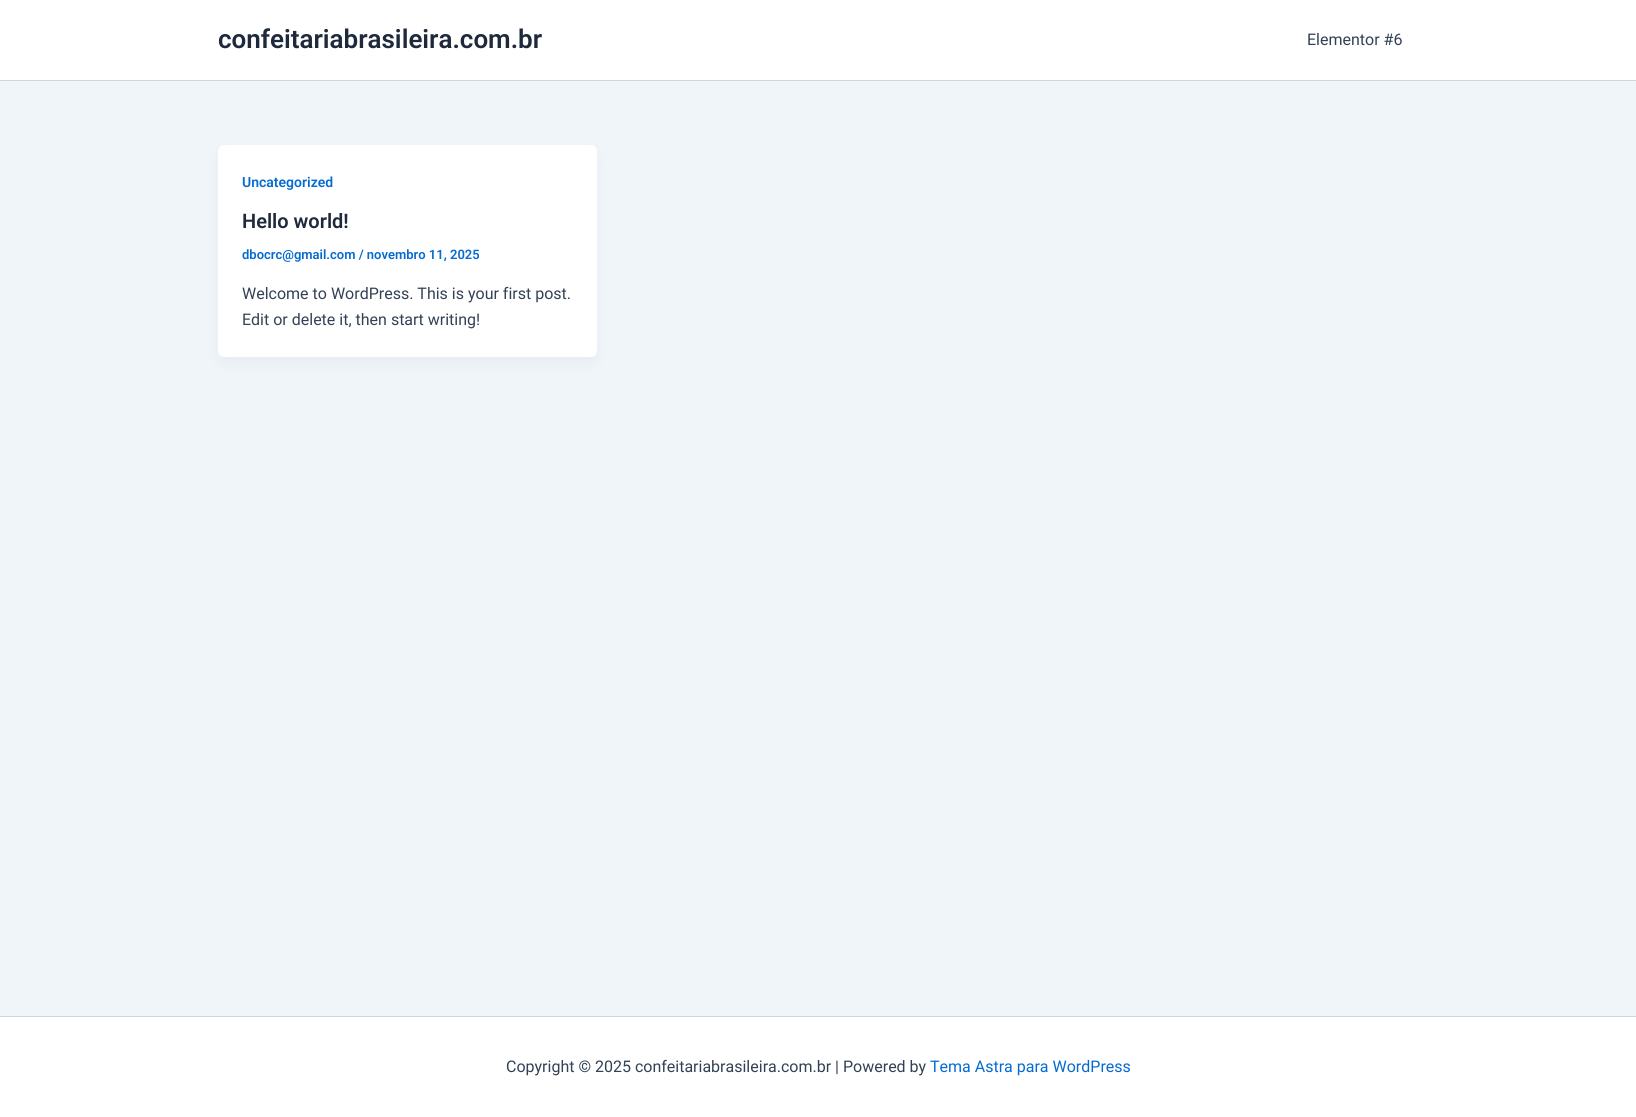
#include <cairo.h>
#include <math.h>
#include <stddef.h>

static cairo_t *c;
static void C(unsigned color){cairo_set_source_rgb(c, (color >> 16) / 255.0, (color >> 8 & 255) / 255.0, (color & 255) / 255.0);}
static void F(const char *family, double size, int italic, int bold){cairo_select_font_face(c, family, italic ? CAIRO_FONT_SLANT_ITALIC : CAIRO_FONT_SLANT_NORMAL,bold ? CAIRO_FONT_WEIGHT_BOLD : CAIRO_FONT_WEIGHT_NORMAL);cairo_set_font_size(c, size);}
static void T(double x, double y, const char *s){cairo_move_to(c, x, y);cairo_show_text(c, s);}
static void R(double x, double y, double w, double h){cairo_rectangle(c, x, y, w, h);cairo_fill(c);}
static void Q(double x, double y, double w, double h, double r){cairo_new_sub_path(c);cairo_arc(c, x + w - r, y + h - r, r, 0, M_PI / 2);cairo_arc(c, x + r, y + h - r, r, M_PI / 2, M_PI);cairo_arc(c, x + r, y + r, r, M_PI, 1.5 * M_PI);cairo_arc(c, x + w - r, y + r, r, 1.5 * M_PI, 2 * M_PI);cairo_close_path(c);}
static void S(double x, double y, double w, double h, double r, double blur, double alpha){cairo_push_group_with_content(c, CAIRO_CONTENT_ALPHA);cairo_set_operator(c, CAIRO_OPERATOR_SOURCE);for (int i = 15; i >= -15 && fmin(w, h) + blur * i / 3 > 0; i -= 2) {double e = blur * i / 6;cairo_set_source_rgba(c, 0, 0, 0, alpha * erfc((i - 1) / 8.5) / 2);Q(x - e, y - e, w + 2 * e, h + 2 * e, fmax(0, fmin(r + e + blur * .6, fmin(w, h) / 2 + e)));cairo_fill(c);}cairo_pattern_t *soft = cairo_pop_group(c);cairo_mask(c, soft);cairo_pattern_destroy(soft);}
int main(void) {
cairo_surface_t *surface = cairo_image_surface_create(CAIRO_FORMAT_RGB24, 1636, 1117);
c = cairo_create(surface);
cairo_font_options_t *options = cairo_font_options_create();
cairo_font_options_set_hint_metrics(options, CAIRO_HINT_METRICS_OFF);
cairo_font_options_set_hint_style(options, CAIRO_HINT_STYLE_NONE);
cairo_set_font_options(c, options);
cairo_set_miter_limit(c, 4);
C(0xf0f5fa);
cairo_paint(c);
C(0xffffff);
R(0,0,1636,80);
C(0xd1d5db);
R(0,80,1636,1);
F("Roboto SemiBold",26,0,0);
C(0x1e293b);
T(218,48,"confeitariabrasileira.com.br");
F("Roboto",16,0,0);
C(0x334155);
T(1307,45,"Elementor #6");
C(0x101828);
S(220,153,375,208,4,7.5,.05);
C(0xffffff);
Q(218,145,379,212,6);
cairo_fill(c);
F("Roboto SemiBold",14,0,0);
C(0x046bd2);
T(242,187,"Uncategorized");
F("Roboto SemiBold",20,0,0);
C(0x1e293b);
T(242,228,"Hello world!");
F("Roboto SemiBold",13,0,0);
C(0x046bd2);
T(242,259,"dbocrc@gmail.com / novembro 11, 2025");
F("Roboto",16,0,0);
C(0x334155);
T(242,299,"Welcome to WordPress. This is your first post.");
T(242,325,"Edit or delete it, then start writing!");
C(0xffffff);
R(0,1017,1636,100);
C(0xd1d5db);
R(0,1016,1636,1);
C(0x334155);
T(506,1072,"Copyright © 2025 confeitariabrasileira.com.br | Powered by");
C(0x046bd2);
T(930,1072,"Tema Astra para WordPress");
cairo_surface_write_to_png(surface, "o.png");
cairo_font_options_destroy(options);
cairo_destroy(c);
cairo_surface_destroy(surface);
return 0;
}
